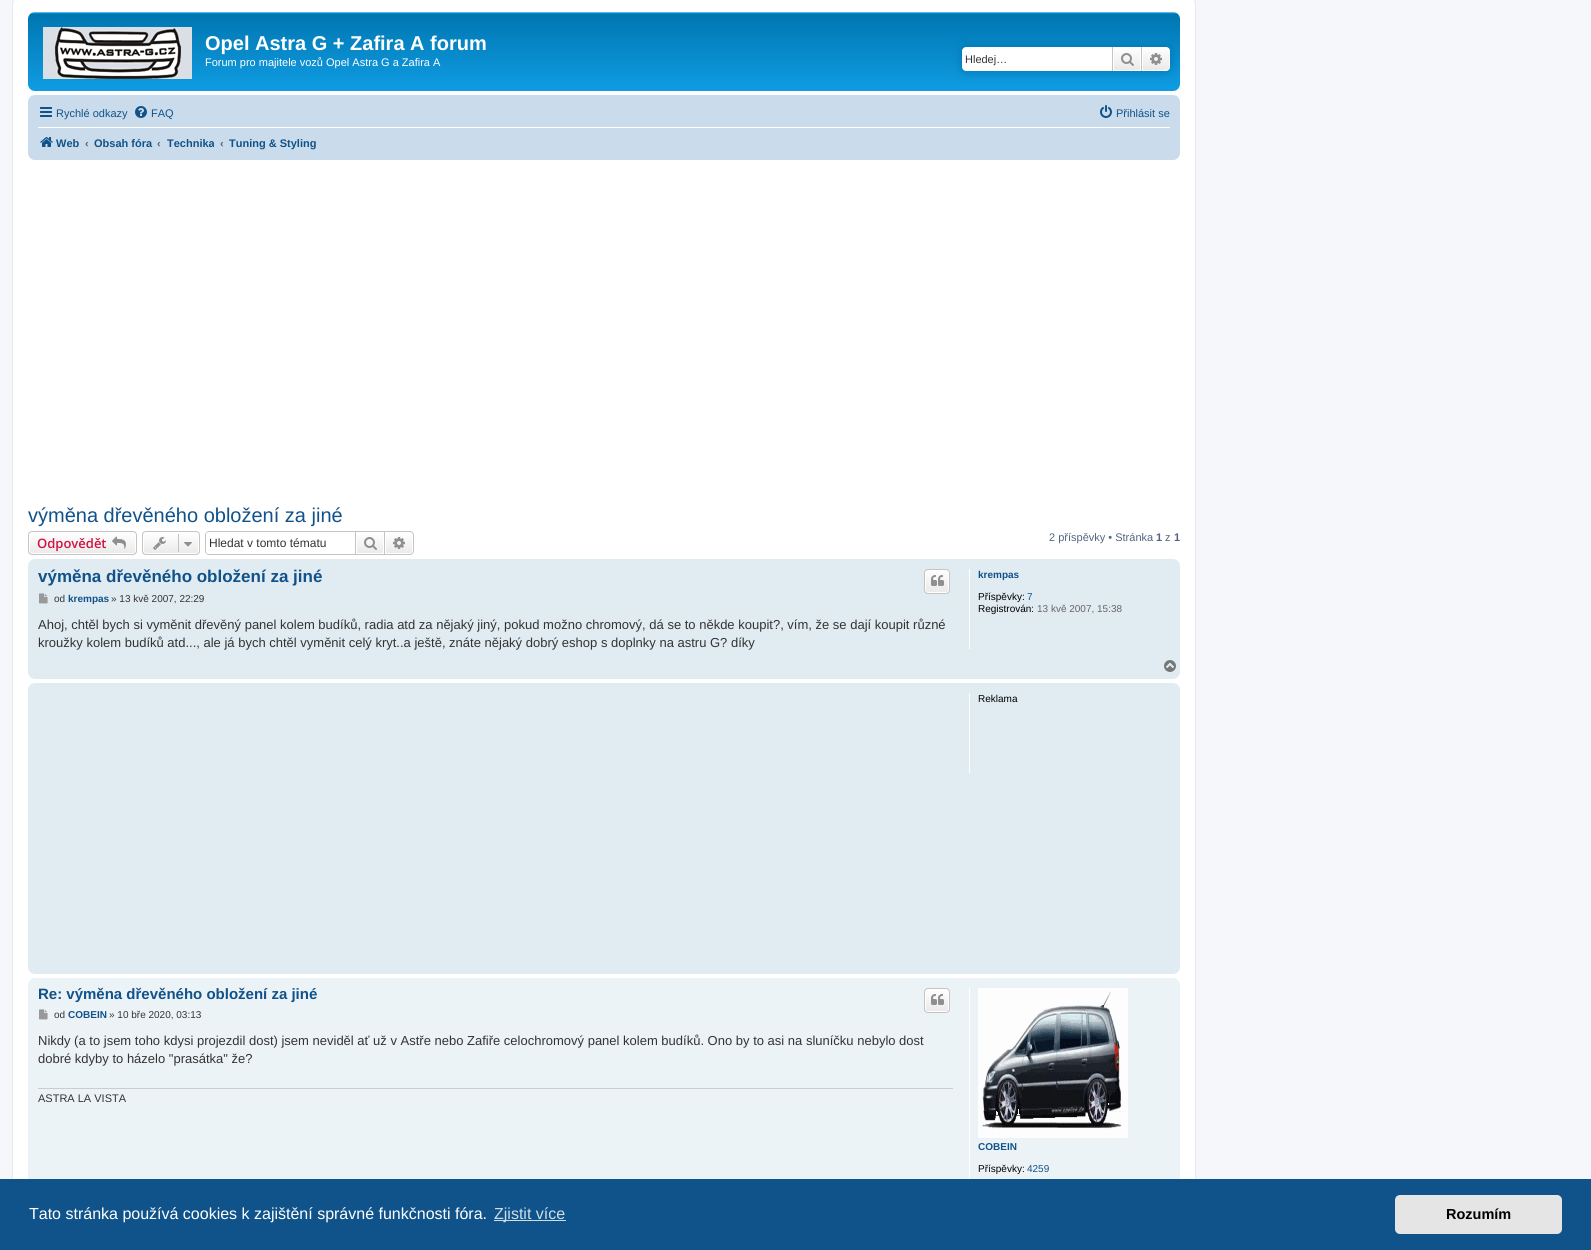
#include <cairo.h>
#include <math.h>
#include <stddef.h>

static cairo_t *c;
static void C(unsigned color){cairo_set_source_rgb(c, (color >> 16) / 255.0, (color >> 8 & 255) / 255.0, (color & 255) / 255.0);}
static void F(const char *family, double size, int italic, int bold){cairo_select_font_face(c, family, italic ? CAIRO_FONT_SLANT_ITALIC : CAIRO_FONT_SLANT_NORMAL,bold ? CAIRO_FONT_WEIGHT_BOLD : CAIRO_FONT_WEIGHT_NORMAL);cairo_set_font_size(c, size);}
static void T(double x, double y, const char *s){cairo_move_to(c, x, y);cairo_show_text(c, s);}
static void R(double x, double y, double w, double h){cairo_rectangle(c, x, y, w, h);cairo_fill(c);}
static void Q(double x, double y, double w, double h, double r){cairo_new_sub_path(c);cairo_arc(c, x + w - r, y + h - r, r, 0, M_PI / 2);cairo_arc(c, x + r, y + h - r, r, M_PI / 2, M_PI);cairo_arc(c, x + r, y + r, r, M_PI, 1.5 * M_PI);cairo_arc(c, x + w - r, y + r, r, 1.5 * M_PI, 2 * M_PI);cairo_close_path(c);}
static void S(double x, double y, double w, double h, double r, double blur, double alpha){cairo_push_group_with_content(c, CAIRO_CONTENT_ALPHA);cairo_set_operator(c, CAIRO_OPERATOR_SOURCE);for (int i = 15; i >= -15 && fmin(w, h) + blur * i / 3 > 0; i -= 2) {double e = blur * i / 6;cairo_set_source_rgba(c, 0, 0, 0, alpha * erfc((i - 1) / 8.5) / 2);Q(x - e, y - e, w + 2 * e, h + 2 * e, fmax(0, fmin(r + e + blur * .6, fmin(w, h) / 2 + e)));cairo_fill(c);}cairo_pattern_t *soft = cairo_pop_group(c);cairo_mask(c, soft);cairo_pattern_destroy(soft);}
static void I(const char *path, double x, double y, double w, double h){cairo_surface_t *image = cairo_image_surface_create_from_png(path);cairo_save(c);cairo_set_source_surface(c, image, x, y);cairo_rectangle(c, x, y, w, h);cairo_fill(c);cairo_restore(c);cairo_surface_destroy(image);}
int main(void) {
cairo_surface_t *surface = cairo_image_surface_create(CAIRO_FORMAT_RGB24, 1591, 1250);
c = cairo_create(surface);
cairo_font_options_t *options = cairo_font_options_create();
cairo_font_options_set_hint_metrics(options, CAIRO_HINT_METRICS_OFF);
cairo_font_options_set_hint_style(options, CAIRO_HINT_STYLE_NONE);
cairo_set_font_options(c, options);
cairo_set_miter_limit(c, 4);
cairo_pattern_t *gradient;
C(0xf5f7fa);
cairo_paint(c);
C(0xffffff);
Q(12.5,-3.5,1183,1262,7.5);
cairo_fill_preserve(c);
C(0xe6e9ed);
cairo_set_line_width(c,1);
cairo_stroke(c);
gradient = cairo_pattern_create_linear(604,12,604,104);
cairo_pattern_add_color_stop_rgba(gradient,0,0.416,0.808,1,1);
cairo_pattern_add_color_stop_rgba(gradient,.02,0,0.463,0.694,1);
cairo_pattern_add_color_stop_rgba(gradient,1,0.071,0.639,0.922,1);
cairo_set_source(c,gradient);
cairo_pattern_destroy(gradient);
Q(28,12,1152,79,7);
cairo_fill(c);
I("1.png",43,27,149,52);
F("Liberation Sans",20,0,1);
C(0xffffff);
T(205,50,"Opel Astra G + Zafira A forum");
F("Liberation Sans",11,0,0);
T(205,66,"Forum pro majitele vozů Opel Astra G a Zafira A");
C(0x0075b0);
S(962,47,208,24,4,5,1);
C(0xffffff);
cairo_new_path(c);
cairo_move_to(c,966,47);
cairo_line_to(c,1112,47);
cairo_line_to(c,1112,71);
cairo_line_to(c,966,71);
cairo_curve_to(c,964,71,962,69,962,67);
cairo_line_to(c,962,51);
cairo_curve_to(c,962,49,964,47,966,47);
cairo_close_path(c);
cairo_fill(c);
C(0x333333);
T(965,63,"Hledej…");
gradient = cairo_pattern_create_linear(1127,47,1127,71);
cairo_pattern_add_color_stop_rgba(gradient,0,1,1,1,1);
cairo_pattern_add_color_stop_rgba(gradient,1,0.914,0.914,0.914,1);
cairo_set_source(c,gradient);
cairo_pattern_destroy(gradient);
R(1114,48,26,22);
cairo_rectangle(c,1113.5,47.5,27,23);
C(0xffffff);
cairo_stroke(c);
C(0xc7c3bf);
R(1141,47,1,24);
R(1112,47,1,24);
I("2.png",1121,53,13,13);
gradient = cairo_pattern_create_linear(1156,47,1156,71);
cairo_pattern_add_color_stop_rgba(gradient,0,1,1,1,1);
cairo_pattern_add_color_stop_rgba(gradient,1,0.914,0.914,0.914,1);
cairo_set_source(c,gradient);
cairo_pattern_destroy(gradient);
cairo_new_path(c);
cairo_move_to(c,1142.5,47.5);
cairo_line_to(c,1166,47.5);
cairo_curve_to(c,1168,47.5,1169.5,49,1169.5,51);
cairo_line_to(c,1169.5,67);
cairo_curve_to(c,1169.5,69,1168,70.5,1166,70.5);
cairo_line_to(c,1142.5,70.5);
cairo_close_path(c);
cairo_fill_preserve(c);
C(0xffffff);
cairo_stroke(c);
I("3.png",1150,53,12,12);
C(0xcadceb);
Q(28,95,1152,65,7);
cairo_fill(c);
I("4.png",40,107,12,10);
C(0x105289);
T(56,117,"Rychlé odkazy");
I("5.png",135,106,12,12);
T(151,117,"FAQ");
I("6.png",1100,105,12,13);
T(1116,117,"Přihlásit se");
C(0xffffff);
R(38,127,1132,1);
I("7.png",40,137,13,10);
F("Liberation Sans",11,0,1);
C(0x105289);
T(56,147,"Web");
C(0x536482);
T(85,147,"‹");
C(0x105289);
T(94,147,"Obsah fóra");
C(0x536482);
T(157,147,"‹");
cairo_save(c);
cairo_rectangle(c,167,131,47,24);
cairo_clip(c);
C(0x105289);
T(167,147,"Technika");
cairo_restore(c);
T(220,147,"‹");
C(0x105289);
T(229,147,"Tuning & Styling");
F("Liberation Sans",20,0,0);
T(28,522,"výměna dřevěného obložení za jiné");
cairo_save(c);
Q(28,531,109,24,4);
cairo_clip(c);
gradient = cairo_pattern_create_linear(83,532,83,554);
cairo_pattern_add_color_stop_rgba(gradient,0,1,1,1,1);
cairo_pattern_add_color_stop_rgba(gradient,1,0.914,0.914,0.914,1);
cairo_set_source(c,gradient);
cairo_pattern_destroy(gradient);
R(28,532,109,22);
cairo_restore(c);
Q(29.5,532.5,106,21,2.5);
C(0xffffff);
cairo_stroke(c);
Q(28.5,531.5,108,23,3.5);
C(0xc7c3bf);
cairo_stroke(c);
F("Open Sans SemiBold",13,0,0);
C(0xd31141);
T(37,548,"Odpovědět");
I("8.png",112,536,14,13);
cairo_save(c);
Q(142,531,58,24,4);
cairo_clip(c);
gradient = cairo_pattern_create_linear(171,532,171,554);
cairo_pattern_add_color_stop_rgba(gradient,0,1,1,1,1);
cairo_pattern_add_color_stop_rgba(gradient,1,0.914,0.914,0.914,1);
cairo_set_source(c,gradient);
cairo_pattern_destroy(gradient);
R(142,532,58,22);
cairo_restore(c);
Q(143.5,532.5,55,21,2.5);
C(0xffffff);
cairo_stroke(c);
Q(142.5,531.5,57,23,3.5);
C(0xc7c3bf);
cairo_stroke(c);
I("9.png",153,537,13,13);
R(178,534,1,18);
I("10.png",184,542,8,5);
cairo_set_fill_rule(c,CAIRO_FILL_RULE_EVEN_ODD);
cairo_new_path(c);
cairo_move_to(c,209,531);
cairo_line_to(c,355,531);
cairo_line_to(c,355,555);
cairo_line_to(c,209,555);
cairo_curve_to(c,207,555,205,553,205,551);
cairo_line_to(c,205,535);
cairo_curve_to(c,205,533,207,531,209,531);
cairo_close_path(c);
cairo_move_to(c,209,532);
cairo_line_to(c,355,532);
cairo_line_to(c,355,554);
cairo_line_to(c,209,554);
cairo_curve_to(c,207,554,206,553,206,551);
cairo_line_to(c,206,535);
cairo_curve_to(c,206,533,207,532,209,532);
cairo_close_path(c);
cairo_fill(c);
F("Liberation Sans",12,0,0);
C(0x333333);
T(209,547,"Hledat v tomto tématu");
gradient = cairo_pattern_create_linear(370,532,370,554);
cairo_pattern_add_color_stop_rgba(gradient,0,1,1,1,1);
cairo_pattern_add_color_stop_rgba(gradient,1,0.914,0.914,0.914,1);
cairo_set_source(c,gradient);
cairo_pattern_destroy(gradient);
R(357,535,26,18);
cairo_rectangle(c,355.5,531.5,29,23);
C(0xc7c3bf);
cairo_stroke(c);
I("11.png",364,537,13,13);
gradient = cairo_pattern_create_linear(399,532,399,554);
cairo_pattern_add_color_stop_rgba(gradient,0,1,1,1,1);
cairo_pattern_add_color_stop_rgba(gradient,1,0.914,0.914,0.914,1);
cairo_set_source(c,gradient);
cairo_pattern_destroy(gradient);
cairo_new_path(c);
cairo_move_to(c,385.5,532.5);
cairo_line_to(c,410,532.5);
cairo_curve_to(c,411.5,532.5,412.5,533.5,412.5,535);
cairo_line_to(c,412.5,551);
cairo_curve_to(c,412.5,552.5,411.5,553.5,410,553.5);
cairo_line_to(c,385.5,553.5);
cairo_close_path(c);
cairo_fill_preserve(c);
C(0xffffff);
cairo_stroke(c);
C(0xc7c3bf);
cairo_new_path(c);
cairo_move_to(c,385,531);
cairo_line_to(c,410,531);
cairo_curve_to(c,412,531,414,533,414,535);
cairo_line_to(c,414,551);
cairo_curve_to(c,414,553,412,555,410,555);
cairo_line_to(c,385,555);
cairo_close_path(c);
cairo_move_to(c,385,532);
cairo_line_to(c,410,532);
cairo_curve_to(c,411.5,532,413,533.5,413,535);
cairo_line_to(c,413,551);
cairo_curve_to(c,413,552.5,411.5,554,410,554);
cairo_line_to(c,385,554);
cairo_close_path(c);
cairo_fill(c);
I("12.png",393,537,12,12);
F("Liberation Sans",11,0,0);
C(0x536482);
T(1049,541,"2 příspěvky • Stránka");
F("Liberation Sans",11,0,1);
T(1156,541,"1");
F("Liberation Sans",11,0,0);
T(1165,541,"z");
F("Liberation Sans",11,0,1);
T(1174,541,"1");
C(0xe1ebf2);
Q(28,559,1152,120,7);
cairo_fill(c);
F("Liberation Sans",17,0,1);
C(0x105289);
T(38,582,"výměna dřevěného obložení za jiné");
cairo_save(c);
cairo_set_fill_rule(c,CAIRO_FILL_RULE_WINDING);
Q(924,569,26,25,4);
cairo_clip(c);
gradient = cairo_pattern_create_linear(937,570,937,593);
cairo_pattern_add_color_stop_rgba(gradient,0,1,1,1,1);
cairo_pattern_add_color_stop_rgba(gradient,1,0.914,0.914,0.914,1);
cairo_set_source(c,gradient);
cairo_pattern_destroy(gradient);
R(924,570,26,23);
cairo_restore(c);
Q(925.5,570.5,23,22,2.5);
C(0xffffff);
cairo_stroke(c);
Q(924.5,569.5,25,24,3.5);
C(0xc7c3bf);
cairo_stroke(c);
I("13.png",931,575,13,11);
I("14.png",39,593,9,11);
F("Liberation Sans",10,0,0);
C(0x333333);
T(54,602,"od");
F("Liberation Sans",10,0,1);
C(0x105289);
T(68,602,"krempas");
F("Liberation Sans",10,0,0);
C(0x333333);
T(111,602,"» 13 kvě 2007, 22:29");
F("Liberation Sans",13,0,0);
T(38,629,"Ahoj, chtěl bych si vyměnit dřevěný panel kolem budíků, radia atd za nějaký jiný, pokud možno chromový, dá se to někde koupit?, vím, že se dají koupit různé");
T(38,647,"kroužky kolem budíků atd..., ale já bych chtěl vyměnit celý kryt..a ještě, znáte nějaký dobrý eshop s doplnky na astru G? díky");
C(0xffffff);
R(969,569,1,80);
F("Liberation Sans",10,0,1);
C(0x105289);
T(978,578,"krempas");
F("Liberation Sans",10,0,0);
C(0x000000);
T(978,600,"Příspěvky:");
C(0x105289);
T(1027,600,"7");
C(0x000000);
T(978,612,"Registrován:");
C(0x666666);
T(1037,612,"13 kvě 2007, 15:38");
I("15.png",1164,660,12,12);
C(0xe1ebf2);
Q(28,683,1152,291,7);
cairo_fill(c);
C(0xffffff);
R(969,693,1,80);
C(0x000000);
T(978,702,"Reklama");
C(0xecf3f7);
Q(28,978,1152,251,7);
cairo_fill(c);
F("Liberation Sans",15,0,1);
C(0x105289);
T(38,999,"Re: výměna dřevěného obložení za jiné");
cairo_save(c);
cairo_set_fill_rule(c,CAIRO_FILL_RULE_WINDING);
Q(924,988,26,25,4);
cairo_clip(c);
gradient = cairo_pattern_create_linear(937,989,937,1012);
cairo_pattern_add_color_stop_rgba(gradient,0,1,1,1,1);
cairo_pattern_add_color_stop_rgba(gradient,1,0.914,0.914,0.914,1);
cairo_set_source(c,gradient);
cairo_pattern_destroy(gradient);
R(924,989,26,23);
cairo_restore(c);
Q(925.5,989.5,23,22,2.5);
C(0xffffff);
cairo_stroke(c);
Q(924.5,988.5,25,24,3.5);
C(0xc7c3bf);
cairo_stroke(c);
I("13.png",931,994,13,11);
I("16.png",39,1009,9,11);
F("Liberation Sans",10,0,0);
C(0x333333);
T(54,1018,"od");
F("Liberation Sans",10,0,1);
C(0x105289);
T(68,1018,"COBEIN");
F("Liberation Sans",10,0,0);
C(0x333333);
T(109,1018,"» 10 bře 2020, 03:13");
F("Liberation Sans",13,0,0);
T(38,1045,"Nikdy (a to jsem toho kdysi projezdil dost) jsem neviděl ať už v Astře nebo Zafiře celochromový panel kolem budíků. Ono by to asi na sluníčku nebylo dost");
T(38,1063,"dobré kdyby to házelo \"prasátka\" že?");
C(0xcccccc);
R(38,1088,915,1);
F("Liberation Sans",11,0,0);
C(0x333333);
T(38,1102,"ASTRA LA VISTA");
C(0xffffff);
R(969,988,1,191);
I("17.png",978,988,150,150);
F("Liberation Sans",10,0,1);
C(0x105289);
T(978,1150,"COBEIN");
F("Liberation Sans",10,0,0);
C(0x000000);
T(978,1172,"Příspěvky:");
C(0x105289);
T(1027,1172,"4259");
C(0x0f538a);
R(0,1179,1591,71);
F("Liberation Sans",16,0,0);
C(0xffffff);
T(29,1219,"Tato stránka používá cookies k zajištění správné funkčnosti fóra.");
C(0xcfdde8);
R(494,1220,72,1);
T(494,1219,"Zjistit více");
C(0xe5e5e5);
Q(1395,1195,167,39,5);
cairo_fill(c);
F("Liberation Sans",14.5,0,1);
C(0x000000);
T(1446,1219,"Rozumím");
cairo_surface_write_to_png(surface, "o.png");
cairo_font_options_destroy(options);
cairo_destroy(c);
cairo_surface_destroy(surface);
return 0;
}
